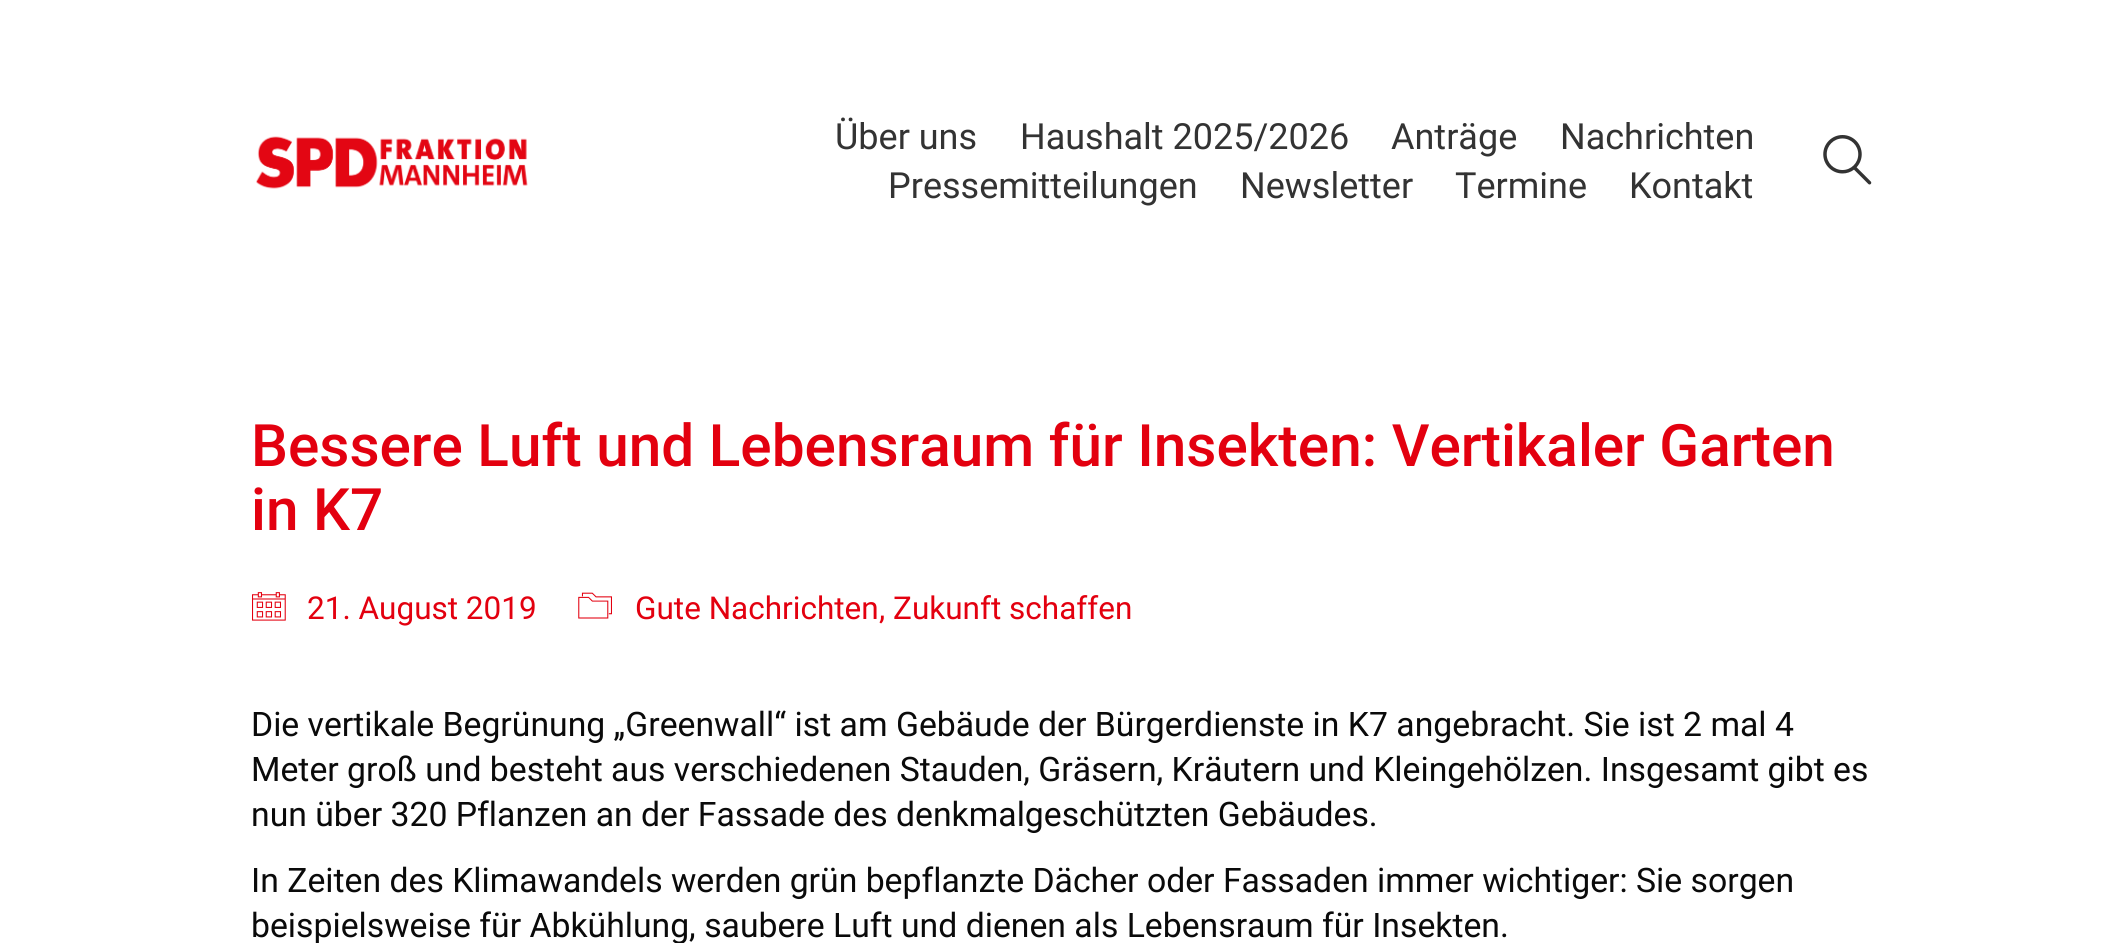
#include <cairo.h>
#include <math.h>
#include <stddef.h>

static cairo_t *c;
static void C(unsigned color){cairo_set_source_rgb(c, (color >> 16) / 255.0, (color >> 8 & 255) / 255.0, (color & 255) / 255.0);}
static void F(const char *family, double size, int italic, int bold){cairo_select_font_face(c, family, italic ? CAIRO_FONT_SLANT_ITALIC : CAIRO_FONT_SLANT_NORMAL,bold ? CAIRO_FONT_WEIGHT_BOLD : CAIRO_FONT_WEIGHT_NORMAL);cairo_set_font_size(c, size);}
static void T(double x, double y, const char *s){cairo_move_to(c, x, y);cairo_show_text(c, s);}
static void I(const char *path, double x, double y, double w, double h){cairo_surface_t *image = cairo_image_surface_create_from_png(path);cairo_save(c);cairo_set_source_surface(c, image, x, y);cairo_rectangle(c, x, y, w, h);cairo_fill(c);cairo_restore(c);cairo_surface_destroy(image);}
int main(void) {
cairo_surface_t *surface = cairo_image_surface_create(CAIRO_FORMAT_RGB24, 2120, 943);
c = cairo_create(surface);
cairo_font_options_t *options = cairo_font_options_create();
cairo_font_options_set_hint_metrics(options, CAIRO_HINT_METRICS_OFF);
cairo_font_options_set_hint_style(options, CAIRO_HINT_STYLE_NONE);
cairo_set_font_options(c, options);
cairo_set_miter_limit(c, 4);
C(0xffffff);
cairo_paint(c);
I("1.png",256,136,272,53);
F("Roboto",36,0,0);
C(0x333333);
T(835,149,"Über uns");
T(1020,149,"Haushalt 2025/2026");
T(1391,149,"Anträge");
T(1560,149,"Nachrichten");
T(888,198,"Pressemitteilungen");
T(1240,198,"Newsletter");
T(1455,198,"Termine");
T(1629,198,"Kontakt");
I("2.png",1823,135,49,50);
F("Roboto Medium",58.5,0,0);
C(0xe3000f);
T(251,466,"Bessere Luft und Lebensraum für Insekten: Vertikaler Garten");
T(251,530,"in K7");
I("3.png",252,592,34,29);
F("Roboto",31.5,0,0);
T(307,619,"21. August 2019");
I("4.png",578,592,34,27);
T(635,619,"Gute Nachrichten");
T(879,619,", Zukunft schaffen");
F("Roboto",33.75,0,0);
C(0x0a0a0a);
T(251,736,"Die vertikale Begrünung „Greenwall“ ist am Gebäude der Bürgerdienste in K7 angebracht. Sie ist 2 mal 4");
T(251,781,"Meter groß und besteht aus verschiedenen Stauden, Gräsern, Kräutern und Kleingehölzen. Insgesamt gibt es");
T(251,826,"nun über 320 Pflanzen an der Fassade des denkmalgeschützten Gebäudes.");
T(251,892,"In Zeiten des Klimawandels werden grün bepflanzte Dächer oder Fassaden immer wichtiger: Sie sorgen");
T(251,937,"beispielsweise für Abkühlung, saubere Luft und dienen als Lebensraum für Insekten.");
cairo_surface_write_to_png(surface, "o.png");
cairo_font_options_destroy(options);
cairo_destroy(c);
cairo_surface_destroy(surface);
return 0;
}
